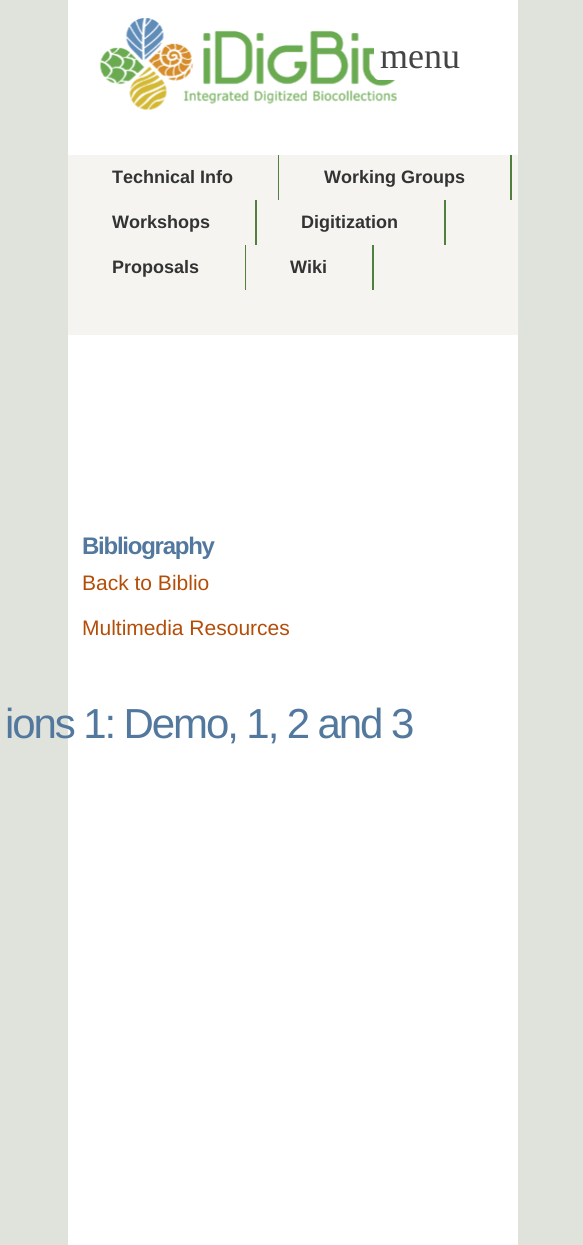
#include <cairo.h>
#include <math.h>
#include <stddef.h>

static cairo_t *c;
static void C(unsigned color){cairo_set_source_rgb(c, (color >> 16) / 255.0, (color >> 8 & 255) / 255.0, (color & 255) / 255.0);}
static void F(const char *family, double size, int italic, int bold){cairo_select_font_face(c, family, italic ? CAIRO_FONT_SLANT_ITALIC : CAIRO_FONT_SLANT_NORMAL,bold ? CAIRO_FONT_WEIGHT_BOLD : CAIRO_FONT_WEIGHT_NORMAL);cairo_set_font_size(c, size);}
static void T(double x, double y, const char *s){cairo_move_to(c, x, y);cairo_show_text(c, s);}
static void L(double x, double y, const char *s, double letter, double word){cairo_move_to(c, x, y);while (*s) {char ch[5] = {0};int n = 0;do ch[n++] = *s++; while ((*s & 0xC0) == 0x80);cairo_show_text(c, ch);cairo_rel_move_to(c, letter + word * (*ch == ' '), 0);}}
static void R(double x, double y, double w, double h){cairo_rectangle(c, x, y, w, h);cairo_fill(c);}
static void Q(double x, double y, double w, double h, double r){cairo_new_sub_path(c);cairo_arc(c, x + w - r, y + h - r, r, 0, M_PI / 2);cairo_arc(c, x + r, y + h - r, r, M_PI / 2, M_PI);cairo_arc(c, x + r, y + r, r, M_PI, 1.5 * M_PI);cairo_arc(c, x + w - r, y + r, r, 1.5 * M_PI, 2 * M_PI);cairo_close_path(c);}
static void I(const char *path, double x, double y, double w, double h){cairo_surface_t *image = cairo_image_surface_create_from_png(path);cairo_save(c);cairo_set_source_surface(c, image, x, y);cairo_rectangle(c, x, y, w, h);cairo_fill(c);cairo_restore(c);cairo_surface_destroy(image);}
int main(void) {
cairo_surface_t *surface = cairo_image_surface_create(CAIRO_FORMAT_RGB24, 583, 1245);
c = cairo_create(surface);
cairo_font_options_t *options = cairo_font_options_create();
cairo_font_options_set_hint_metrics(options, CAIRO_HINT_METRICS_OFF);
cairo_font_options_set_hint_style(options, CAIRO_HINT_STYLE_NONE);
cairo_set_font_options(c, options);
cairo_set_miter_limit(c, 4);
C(0xe0e2dc);
cairo_paint(c);
C(0xffffff);
R(68,0,450,1245);
I("1.png",100,18,297,92);
Q(374,32,93,48,5);
cairo_fill(c);
F("Liberation Serif",36,0,0);
C(0x444444);
T(380,68,"menu");
C(0xf5f4f1);
R(68,155,450,180);
C(0x517f3d);
R(278,155,1,45);
F("Liberation Sans",18,0,1);
C(0x333333);
T(112,183,"Technical Info");
C(0x517f3d);
R(510,155,2,45);
C(0x333333);
T(324,183,"Working Groups");
C(0x517f3d);
R(255,200,2,45);
C(0x333333);
T(112,228,"Workshops");
C(0x517f3d);
R(444,200,2,45);
C(0x333333);
T(301,228,"Digitization");
C(0x517f3d);
R(245,245,1,45);
C(0x333333);
T(112,273,"Proposals");
C(0x517f3d);
R(372,245,2,45);
C(0x333333);
T(290,273,"Wiki");
F("Liberation Sans",24,0,1);
C(0x53789e);
L(82,554,"Bibliography",-1.25,0);
F("Liberation Sans",21,0,0);
C(0xb44d07);
T(82,590,"Back to Biblio");
T(82,635,"Multimedia Resources");
F("Liberation Sans",42,0,0);
C(0x53789e);
L(5,738,"ions 1: Demo, 1, 2 and 3",-2.1,0);
cairo_surface_write_to_png(surface, "o.png");
cairo_font_options_destroy(options);
cairo_destroy(c);
cairo_surface_destroy(surface);
return 0;
}
